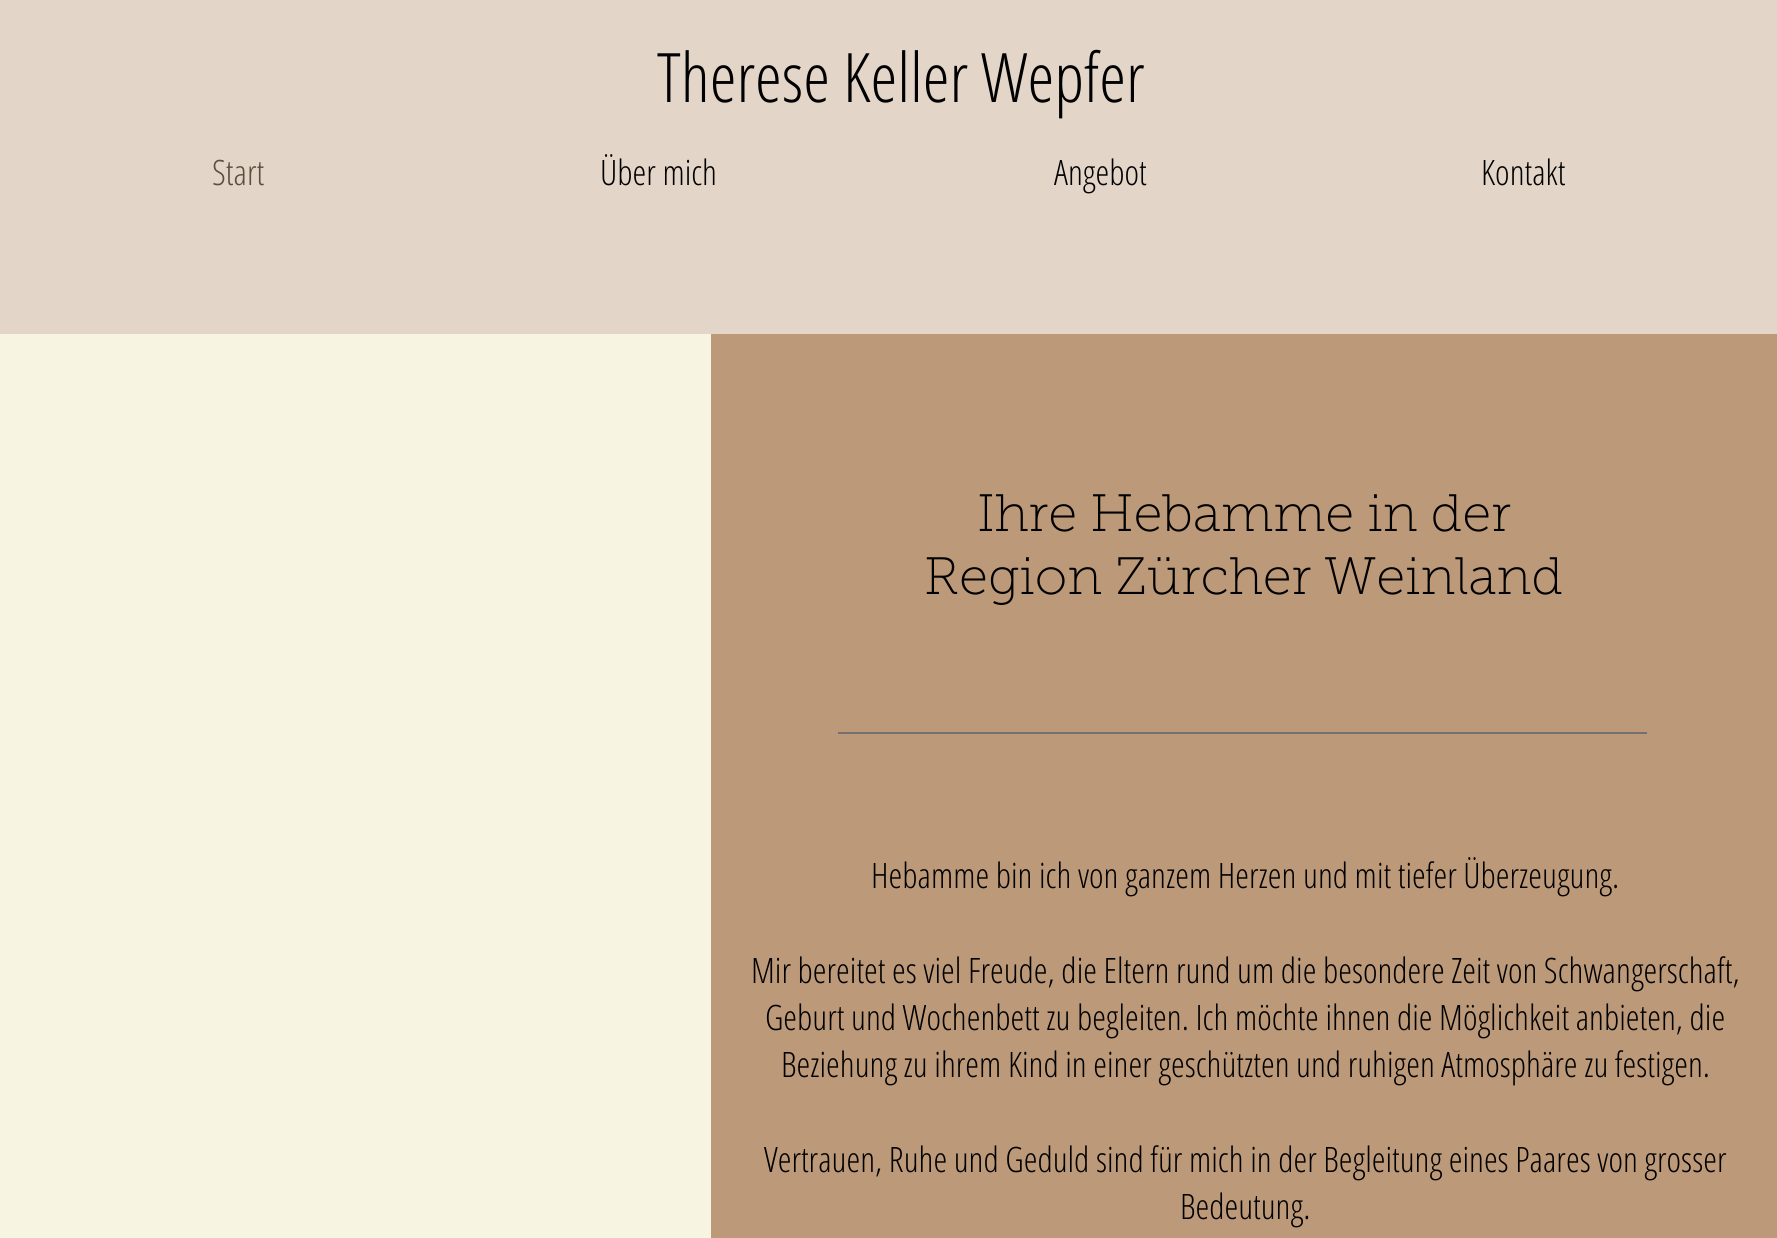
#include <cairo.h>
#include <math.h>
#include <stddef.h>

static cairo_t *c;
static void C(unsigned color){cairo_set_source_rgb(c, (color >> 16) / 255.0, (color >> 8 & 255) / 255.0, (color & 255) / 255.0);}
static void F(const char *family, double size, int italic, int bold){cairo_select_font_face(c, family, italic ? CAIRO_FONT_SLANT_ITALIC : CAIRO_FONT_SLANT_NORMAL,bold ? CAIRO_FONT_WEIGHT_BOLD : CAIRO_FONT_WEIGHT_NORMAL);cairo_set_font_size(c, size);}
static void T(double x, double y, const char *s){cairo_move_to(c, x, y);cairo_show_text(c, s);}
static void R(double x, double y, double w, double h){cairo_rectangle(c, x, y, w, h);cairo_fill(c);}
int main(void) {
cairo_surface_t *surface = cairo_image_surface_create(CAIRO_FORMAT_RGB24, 1777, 1238);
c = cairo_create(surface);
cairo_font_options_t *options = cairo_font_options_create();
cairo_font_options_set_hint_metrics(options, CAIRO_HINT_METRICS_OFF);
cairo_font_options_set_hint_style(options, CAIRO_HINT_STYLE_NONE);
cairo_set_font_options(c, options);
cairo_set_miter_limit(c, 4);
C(0xe3d5c8);
cairo_paint(c);
F("Open Sans Condensed Light",68.25,0,0);
C(0x000000);
T(657,102,"Therese Keller Wepfer");
F("Open Sans Condensed Light",35,0,0);
C(0x5e4d3d);
T(212,185,"Start");
C(0x000000);
T(600,185,"Über mich");
T(1054,185,"Angebot");
T(1481,185,"Kontakt");
C(0xf7f5e1);
R(0,334,711,904);
C(0xbc9979);
R(711,334,1066,904);
F("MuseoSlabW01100 Thin",52.5,0,0);
C(0x000000);
T(977,531,"Ihre Hebamme in der");
T(924,594,"Region Zürcher Weinland");
C(0x72716f);
R(838,732,809,2);
F("Open Sans Condensed Light",35,0,0);
C(0x000000);
T(871,888,"Hebamme bin ich von ganzem Herzen und mit tiefer Überzeugung.");
T(751,983,"Mir bereitet es viel Freude, die Eltern rund um die besondere Zeit von Schwangerschaft,");
T(765,1030,"Geburt und Wochenbett zu begleiten. Ich möchte ihnen die Möglichkeit anbieten, die");
T(781,1077,"Beziehung zu ihrem Kind in einer geschützten und ruhigen Atmosphäre zu festigen.");
T(764,1172,"Vertrauen, Ruhe und Geduld sind für mich in der Begleitung eines Paares von grosser");
T(1180,1219,"Bedeutung.");
cairo_surface_write_to_png(surface, "o.png");
cairo_font_options_destroy(options);
cairo_destroy(c);
cairo_surface_destroy(surface);
return 0;
}
